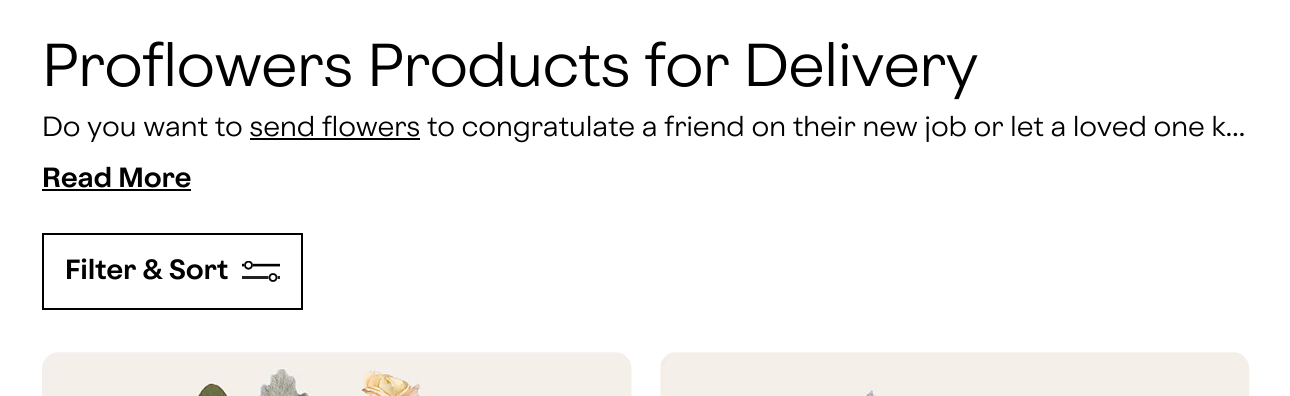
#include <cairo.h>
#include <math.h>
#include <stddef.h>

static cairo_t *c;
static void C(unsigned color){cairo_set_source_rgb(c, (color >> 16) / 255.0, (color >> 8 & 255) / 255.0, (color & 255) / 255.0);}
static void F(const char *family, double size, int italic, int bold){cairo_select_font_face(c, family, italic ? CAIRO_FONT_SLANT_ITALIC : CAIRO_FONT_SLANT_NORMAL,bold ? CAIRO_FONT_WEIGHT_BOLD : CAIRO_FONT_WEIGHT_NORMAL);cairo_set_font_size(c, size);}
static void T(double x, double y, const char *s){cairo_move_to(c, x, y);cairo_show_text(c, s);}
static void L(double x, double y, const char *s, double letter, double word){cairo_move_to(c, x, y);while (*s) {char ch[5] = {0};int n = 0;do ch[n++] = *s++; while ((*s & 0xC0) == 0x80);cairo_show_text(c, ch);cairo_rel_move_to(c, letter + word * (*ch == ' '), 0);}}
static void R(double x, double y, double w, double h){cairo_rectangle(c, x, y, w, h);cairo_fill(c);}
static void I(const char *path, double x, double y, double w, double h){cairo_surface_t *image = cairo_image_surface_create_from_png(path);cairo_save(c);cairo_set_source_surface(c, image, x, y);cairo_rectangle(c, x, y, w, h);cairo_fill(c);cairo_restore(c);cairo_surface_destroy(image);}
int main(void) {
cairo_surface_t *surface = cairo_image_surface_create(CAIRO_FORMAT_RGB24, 1290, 396);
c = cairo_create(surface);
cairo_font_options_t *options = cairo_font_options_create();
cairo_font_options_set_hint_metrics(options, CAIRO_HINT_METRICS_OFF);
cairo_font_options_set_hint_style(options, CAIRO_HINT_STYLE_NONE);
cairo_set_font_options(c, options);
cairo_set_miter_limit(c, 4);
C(0xffffff);
cairo_paint(c);
F("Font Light",54.25,0,0);
C(0x000000);
T(42,86,"Proflowers Products for Delivery");
F("Font Light",24.9,0,0);
L(42,136,"Do you want to send flowers to congratulate a friend on their new job or let a loved one k…",.25,0);
R(250,138,170,2);
F("Font Medium",24.9,0,0);
L(42,187,"Read More",.25,0);
R(42,189,149,2);
cairo_rectangle(c,43,234,259,75);
cairo_stroke(c);
L(65,279,"Filter & Sort",.25,0);
I("1.png",242,261,38,21);
I("2.png",42,352,590,44);
I("3.png",660,352,590,44);
cairo_surface_write_to_png(surface, "o.png");
cairo_font_options_destroy(options);
cairo_destroy(c);
cairo_surface_destroy(surface);
return 0;
}
